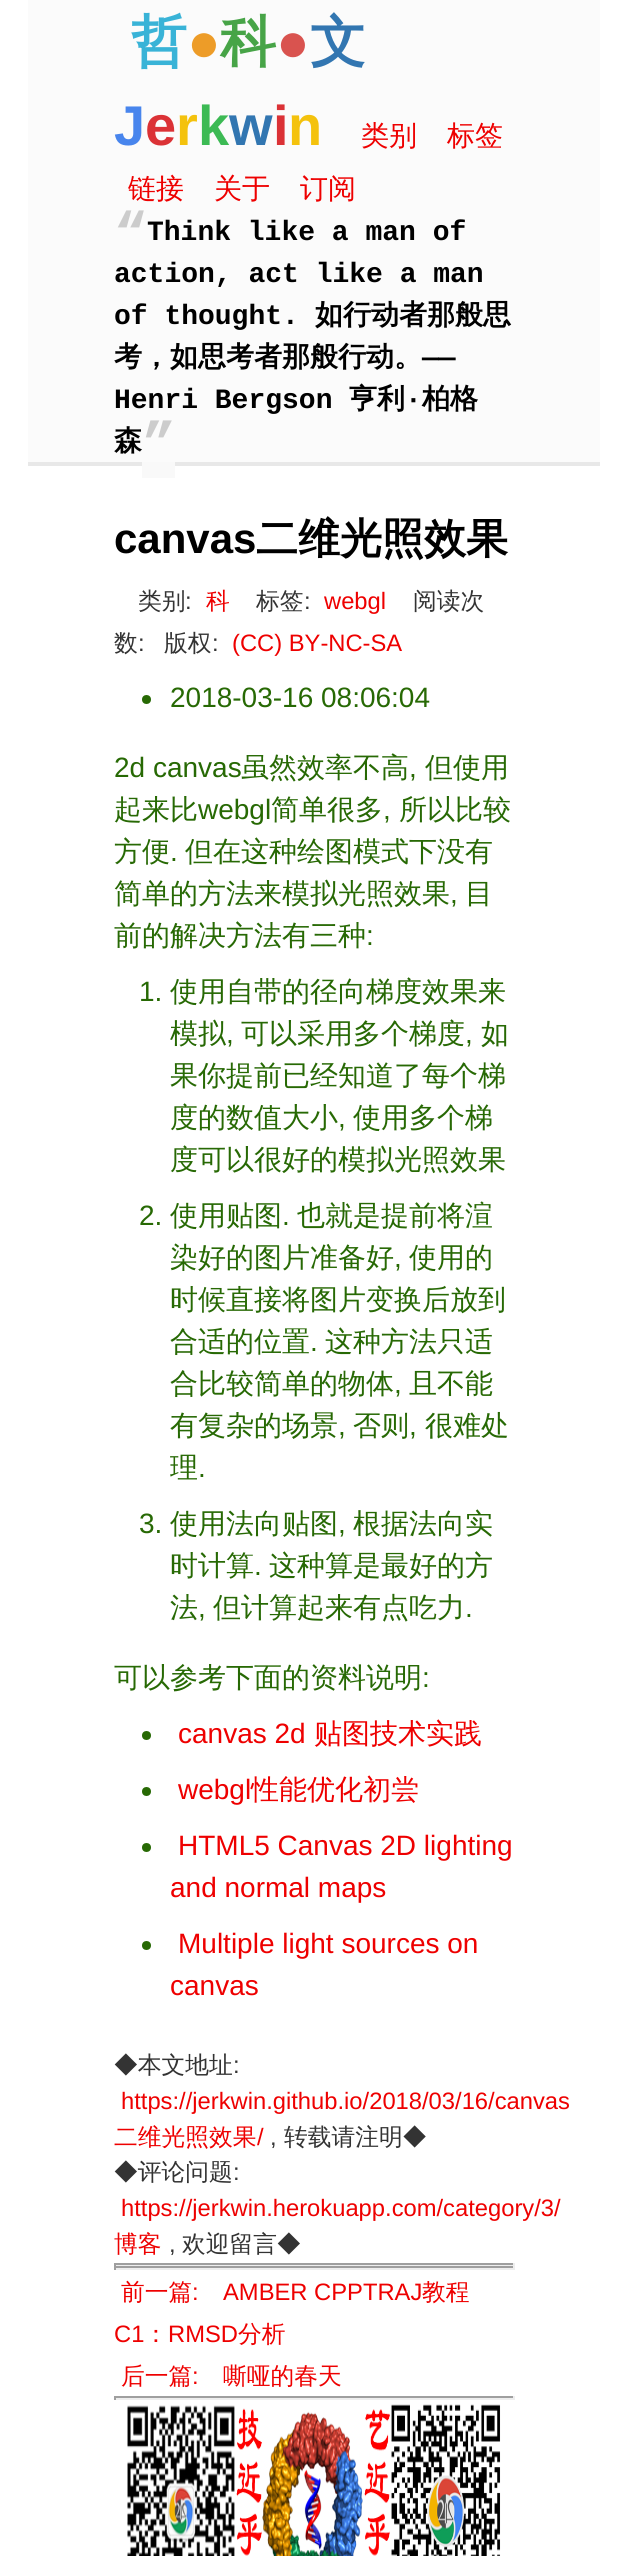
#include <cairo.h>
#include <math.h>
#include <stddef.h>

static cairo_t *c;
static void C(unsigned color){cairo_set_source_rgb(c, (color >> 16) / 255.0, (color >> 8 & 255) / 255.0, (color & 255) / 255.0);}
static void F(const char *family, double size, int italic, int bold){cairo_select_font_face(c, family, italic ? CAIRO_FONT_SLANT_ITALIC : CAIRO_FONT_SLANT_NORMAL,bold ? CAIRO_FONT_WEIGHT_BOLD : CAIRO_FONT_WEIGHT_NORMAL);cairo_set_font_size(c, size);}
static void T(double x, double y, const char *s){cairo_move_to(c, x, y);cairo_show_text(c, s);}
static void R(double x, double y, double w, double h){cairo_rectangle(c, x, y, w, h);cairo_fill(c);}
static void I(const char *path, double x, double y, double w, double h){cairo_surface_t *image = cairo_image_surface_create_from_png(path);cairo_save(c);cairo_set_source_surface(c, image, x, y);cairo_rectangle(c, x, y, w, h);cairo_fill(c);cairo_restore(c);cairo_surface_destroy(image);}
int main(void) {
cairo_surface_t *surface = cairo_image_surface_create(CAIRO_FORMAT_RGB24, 628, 2556);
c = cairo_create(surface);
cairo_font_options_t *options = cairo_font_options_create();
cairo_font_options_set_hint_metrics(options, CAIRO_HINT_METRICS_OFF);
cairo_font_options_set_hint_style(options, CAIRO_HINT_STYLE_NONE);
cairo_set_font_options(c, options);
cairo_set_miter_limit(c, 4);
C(0xffffff);
cairo_paint(c);
C(0xfbfbfb);
R(28,0,572,462);
C(0xe8e8e8);
R(28,462,572,4);
F("WenQuanYi Zen Hei",56,0,1);
C(0x39b3d7);
T(131,61,"哲");
F("Liberation Sans",56,0,1);
C(0xed9c28);
T(187,61,"●");
F("WenQuanYi Zen Hei",56,0,1);
C(0x47a447);
T(220,61,"科");
F("Liberation Sans",56,0,1);
C(0xd9534f);
T(276,61,"●");
F("WenQuanYi Zen Hei",56,0,1);
C(0x3276b1);
T(310,61,"文");
F("Liberation Sans",56,0,1);
C(0x4885ed);
T(114,145,"J");
C(0xdb3236);
T(145,145,"e");
C(0xf4c20d);
T(176,145,"r");
C(0x3cba54);
T(198,145,"k");
C(0x3276b1);
T(229,145,"w");
C(0xdb3236);
T(273,145,"i");
C(0xf4c20d);
T(288,145,"n");
F("WenQuanYi Zen Hei Medium",28,0,0);
C(0xee0000);
T(361,145,"类别");
T(447,145,"标签");
T(128,198,"链接");
T(214,198,"关于");
T(300,198,"订阅");
F("Liberation Mono",56,0,1);
C(0xcccccc);
T(114,251,"“");
F("Liberation Mono",28,0,1);
C(0x000000);
T(147,240,"Think like a man of");
T(114,282,"action, act like a man");
T(114,324,"of thought.");
F("WenQuanYi Zen Hei",28,0,1);
T(315,324,"如行动者那般思");
T(114,366,"考，如思考者那般行动。");
F("Liberation Mono",28,0,1);
T(422,366,"——");
T(114,408,"Henri Bergson");
F("WenQuanYi Zen Hei",28,0,1);
T(349,408,"亨利");
F("Liberation Mono",28,0,1);
T(405,408,"·");
F("WenQuanYi Zen Hei",28,0,1);
T(422,408,"柏格");
T(114,450,"森");
C(0xf9f9f9);
R(142,462,33,16);
F("Liberation Mono",56,0,1);
C(0xcccccc);
T(142,461,"”");
F("Liberation Sans",42,0,1);
C(0x000000);
T(114,553,"canvas");
F("WenQuanYi Zen Hei",42,0,1);
T(256,553,"二维光照效果");
F("WenQuanYi Zen Hei Medium",23.75,0,0);
C(0x333333);
T(138,609,"类别");
F("Liberation Sans",23.75,0,0);
T(185,609,":");
F("WenQuanYi Zen Hei Medium",23.75,0,0);
C(0xee0000);
T(206,609,"科");
C(0x333333);
T(256,609,"标签");
F("Liberation Sans",23.75,0,0);
T(304,609,":");
C(0xee0000);
T(324,609,"webgl");
F("WenQuanYi Zen Hei Medium",23.75,0,0);
C(0x333333);
T(413,609,"阅读次");
T(114,651,"数");
F("Liberation Sans",23.75,0,0);
T(138,651,":");
F("WenQuanYi Zen Hei Medium",23.75,0,0);
T(164,651,"版权");
F("Liberation Sans",23.75,0,0);
T(212,651,":");
C(0xee0000);
T(232,651,"(CC) BY-NC-SA");
C(0x276904);
cairo_new_path(c);
cairo_arc(c,146.5,699.5,4.5,0,2 * M_PI);
cairo_fill(c);
F("Liberation Sans",28,0,0);
T(170,707,"2018-03-16 08:06:04");
T(114,777,"2d canvas");
F("WenQuanYi Zen Hei Medium",28,0,0);
T(241,777,"虽然效率不高");
F("Liberation Sans",28,0,0);
T(409,777,",");
F("WenQuanYi Zen Hei Medium",28,0,0);
T(425,777,"但使用");
T(114,819,"起来比");
F("Liberation Sans",28,0,0);
T(198,819,"webgl");
F("WenQuanYi Zen Hei Medium",28,0,0);
T(271,819,"简单很多");
F("Liberation Sans",28,0,0);
T(383,819,",");
F("WenQuanYi Zen Hei Medium",28,0,0);
T(399,819,"所以比较");
T(114,861,"方便");
F("Liberation Sans",28,0,0);
T(170,861,".");
F("WenQuanYi Zen Hei Medium",28,0,0);
T(185,861,"但在这种绘图模式下没有");
T(114,903,"简单的方法来模拟光照效果");
F("Liberation Sans",28,0,0);
T(450,903,",");
F("WenQuanYi Zen Hei Medium",28,0,0);
T(465,903,"目");
T(114,945,"前的解决方法有三种");
F("Liberation Sans",28,0,0);
T(366,945,":");
T(139,1001,"1.");
F("WenQuanYi Zen Hei Medium",28,0,0);
T(170,1001,"使用自带的径向梯度效果来");
T(170,1043,"模拟");
F("Liberation Sans",28,0,0);
T(226,1043,",");
F("WenQuanYi Zen Hei Medium",28,0,0);
T(241,1043,"可以采用多个梯度");
F("Liberation Sans",28,0,0);
T(465,1043,",");
F("WenQuanYi Zen Hei Medium",28,0,0);
T(481,1043,"如");
T(170,1085,"果你提前已经知道了每个梯");
T(170,1127,"度的数值大小");
F("Liberation Sans",28,0,0);
T(338,1127,",");
F("WenQuanYi Zen Hei Medium",28,0,0);
T(353,1127,"使用多个梯");
T(170,1169,"度可以很好的模拟光照效果");
F("Liberation Sans",28,0,0);
T(139,1225,"2.");
F("WenQuanYi Zen Hei Medium",28,0,0);
T(170,1225,"使用贴图");
F("Liberation Sans",28,0,0);
T(282,1225,".");
F("WenQuanYi Zen Hei Medium",28,0,0);
T(297,1225,"也就是提前将渲");
T(170,1267,"染好的图片准备好");
F("Liberation Sans",28,0,0);
T(394,1267,",");
F("WenQuanYi Zen Hei Medium",28,0,0);
T(409,1267,"使用的");
T(170,1309,"时候直接将图片变换后放到");
T(170,1351,"合适的位置");
F("Liberation Sans",28,0,0);
T(310,1351,".");
F("WenQuanYi Zen Hei Medium",28,0,0);
T(325,1351,"这种方法只适");
T(170,1393,"合比较简单的物体");
F("Liberation Sans",28,0,0);
T(394,1393,",");
F("WenQuanYi Zen Hei Medium",28,0,0);
T(409,1393,"且不能");
T(170,1435,"有复杂的场景");
F("Liberation Sans",28,0,0);
T(338,1435,",");
F("WenQuanYi Zen Hei Medium",28,0,0);
T(353,1435,"否则");
F("Liberation Sans",28,0,0);
T(409,1435,",");
F("WenQuanYi Zen Hei Medium",28,0,0);
T(425,1435,"很难处");
T(170,1477,"理");
F("Liberation Sans",28,0,0);
T(198,1477,".");
T(139,1533,"3.");
F("WenQuanYi Zen Hei Medium",28,0,0);
T(170,1533,"使用法向贴图");
F("Liberation Sans",28,0,0);
T(338,1533,",");
F("WenQuanYi Zen Hei Medium",28,0,0);
T(353,1533,"根据法向实");
T(170,1575,"时计算");
F("Liberation Sans",28,0,0);
T(254,1575,".");
F("WenQuanYi Zen Hei Medium",28,0,0);
T(269,1575,"这种算是最好的方");
T(170,1617,"法");
F("Liberation Sans",28,0,0);
T(198,1617,",");
F("WenQuanYi Zen Hei Medium",28,0,0);
T(213,1617,"但计算起来有点吃力");
F("Liberation Sans",28,0,0);
T(465,1617,".");
F("WenQuanYi Zen Hei Medium",28,0,0);
T(114,1687,"可以参考下面的资料说明");
F("Liberation Sans",28,0,0);
T(422,1687,":");
cairo_new_path(c);
cairo_arc(c,146.5,1735.5,4.5,0,2 * M_PI);
cairo_fill(c);
C(0xee0000);
T(178,1743,"canvas 2d");
F("WenQuanYi Zen Hei Medium",28,0,0);
T(314,1743,"贴图技术实践");
C(0x276904);
cairo_new_path(c);
cairo_arc(c,146.5,1791.5,4.5,0,2 * M_PI);
cairo_fill(c);
F("Liberation Sans",28,0,0);
C(0xee0000);
T(178,1799,"webgl");
F("WenQuanYi Zen Hei Medium",28,0,0);
T(251,1799,"性能优化初尝");
C(0x276904);
cairo_new_path(c);
cairo_arc(c,146.5,1847.5,4.5,0,2 * M_PI);
cairo_fill(c);
F("Liberation Sans",28,0,0);
C(0xee0000);
T(178,1855,"HTML5 Canvas 2D lighting");
T(170,1897,"and normal maps");
C(0x276904);
cairo_new_path(c);
cairo_arc(c,146.5,1945.5,4.5,0,2 * M_PI);
cairo_fill(c);
C(0xee0000);
T(178,1953,"Multiple light sources on");
T(170,1995,"canvas");
F("WenQuanYi Zen Hei Medium",23.75,0,0);
C(0x333333);
T(114,2073,"◆本文地址");
F("Liberation Sans",23.75,0,0);
T(233,2073,":");
C(0xee0000);
T(121,2109,"https://jerkwin.github.io/2018/03/16/canvas");
F("WenQuanYi Zen Hei Medium",23.75,0,0);
T(114,2145,"二维光照效果");
F("Liberation Sans",23.75,0,0);
T(257,2145,"/");
C(0x333333);
T(270,2145,",");
F("WenQuanYi Zen Hei Medium",23.75,0,0);
T(284,2145,"转载请注明◆");
T(114,2180,"◆评论问题");
F("Liberation Sans",23.75,0,0);
T(233,2180,":");
C(0xee0000);
T(121,2216,"https://jerkwin.herokuapp.com/category/3/");
F("WenQuanYi Zen Hei Medium",23.75,0,0);
T(114,2252,"博客");
F("Liberation Sans",23.75,0,0);
C(0x333333);
T(169,2252,",");
F("WenQuanYi Zen Hei Medium",23.75,0,0);
T(182,2252,"欢迎留言◆");
C(0x9f9f9f);
R(114,2263,401,2);
C(0xeeeeee);
R(513,2263,2,4);
R(114,2265,401,1);
C(0x9f9f9f);
R(114,2263,2,4);
R(114,2266,401,2);
C(0xeeeeee);
R(513,2266,2,4);
R(114,2268,401,2);
C(0x9f9f9f);
R(114,2266,2,4);
C(0xee0000);
T(121,2300,"前一篇");
F("Liberation Sans",23.75,0,0);
T(192,2300,":");
T(223,2300,"AMBER CPPTRAJ");
F("WenQuanYi Zen Hei Medium",23.75,0,0);
T(422,2300,"教程");
F("Liberation Sans",23.75,0,0);
T(114,2342,"C1");
F("WenQuanYi Zen Hei Medium",23.75,0,0);
T(144,2342,"：");
F("Liberation Sans",23.75,0,0);
T(168,2342,"RMSD");
F("WenQuanYi Zen Hei Medium",23.75,0,0);
T(238,2342,"分析");
T(121,2384,"后一篇");
F("Liberation Sans",23.75,0,0);
T(192,2384,":");
F("WenQuanYi Zen Hei Medium",23.75,0,0);
T(223,2384,"嘶哑的春天");
C(0x9f9f9f);
R(114,2396,401,2);
C(0xeeeeee);
R(513,2396,2,4);
R(114,2398,401,2);
C(0x9f9f9f);
R(114,2396,2,4);
I("1.png",127,2404,374,152);
cairo_surface_write_to_png(surface, "o.png");
cairo_font_options_destroy(options);
cairo_destroy(c);
cairo_surface_destroy(surface);
return 0;
}
